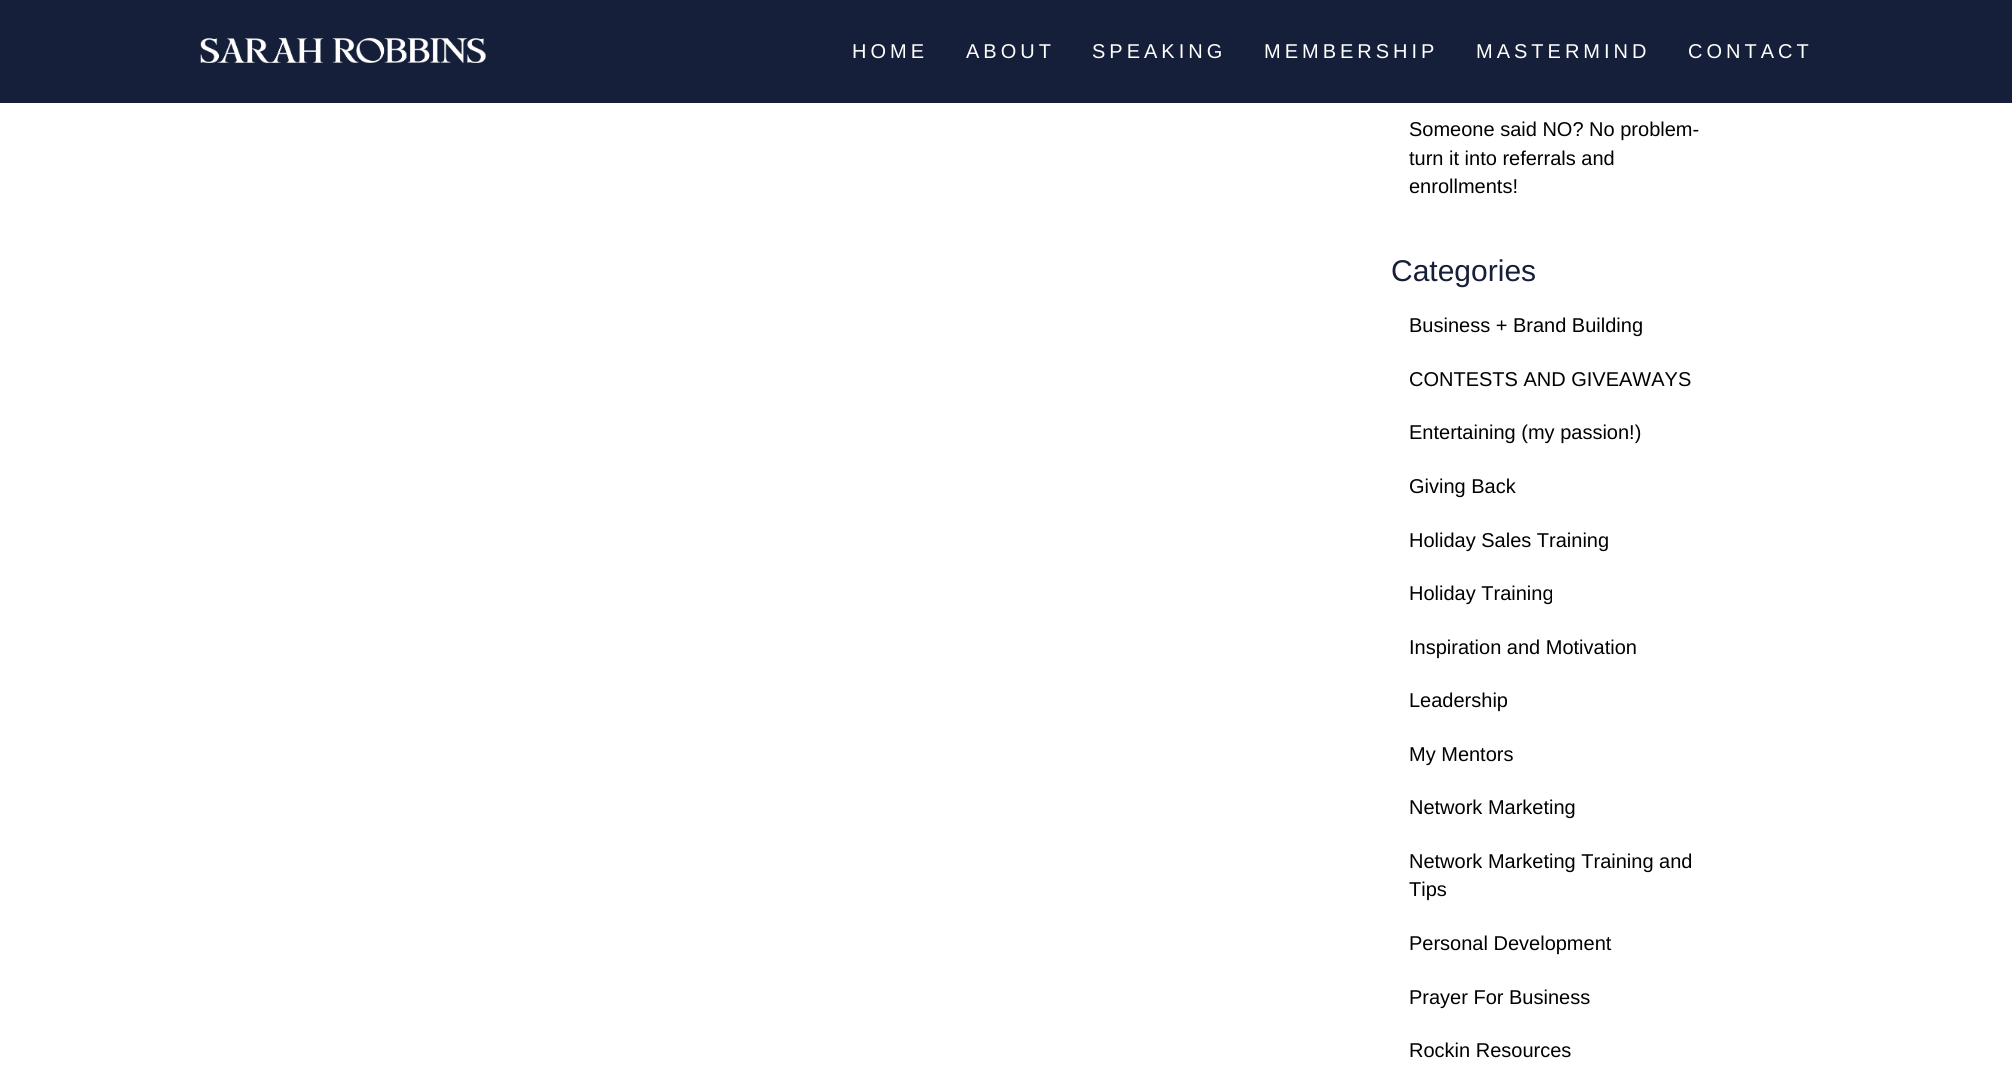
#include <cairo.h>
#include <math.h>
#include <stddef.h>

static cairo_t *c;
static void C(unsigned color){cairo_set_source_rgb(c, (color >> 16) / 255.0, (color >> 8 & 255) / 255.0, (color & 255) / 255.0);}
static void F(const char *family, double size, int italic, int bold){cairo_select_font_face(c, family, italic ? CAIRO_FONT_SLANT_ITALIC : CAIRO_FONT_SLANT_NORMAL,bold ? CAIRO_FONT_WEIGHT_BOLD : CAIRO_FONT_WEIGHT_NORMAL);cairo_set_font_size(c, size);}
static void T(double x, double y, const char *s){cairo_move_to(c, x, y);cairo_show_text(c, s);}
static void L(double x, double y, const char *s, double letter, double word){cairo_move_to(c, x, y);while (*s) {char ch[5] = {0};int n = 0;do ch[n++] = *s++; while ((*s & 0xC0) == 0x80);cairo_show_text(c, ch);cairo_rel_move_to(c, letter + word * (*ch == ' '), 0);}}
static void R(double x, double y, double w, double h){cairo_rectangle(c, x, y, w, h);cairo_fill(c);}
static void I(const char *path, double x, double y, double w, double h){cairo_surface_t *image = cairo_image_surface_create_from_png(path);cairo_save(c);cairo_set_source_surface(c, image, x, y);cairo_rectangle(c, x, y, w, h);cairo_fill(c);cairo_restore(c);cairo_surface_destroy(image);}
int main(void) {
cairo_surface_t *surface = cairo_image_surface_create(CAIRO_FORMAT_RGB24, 2012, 1066);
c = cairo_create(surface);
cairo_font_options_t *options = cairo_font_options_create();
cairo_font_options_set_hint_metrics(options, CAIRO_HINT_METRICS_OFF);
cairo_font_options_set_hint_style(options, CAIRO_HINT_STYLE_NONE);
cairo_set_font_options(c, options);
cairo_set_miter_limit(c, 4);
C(0xffffff);
cairo_paint(c);
C(0x161f39);
R(0,0,2012,103);
I("1.png",200,37,286,26);
F("Liberation Sans",20,0,0);
C(0xffffff);
L(852,58,"HOME",4,0);
L(966,58,"ABOUT",4,0);
L(1092,58,"SPEAKING",4,0);
L(1264,58,"MEMBERSHIP",4,0);
L(1476,58,"MASTERMIND",4,0);
L(1688,58,"CONTACT",4,0);
C(0x000000);
T(1409,136,"Someone said NO? No problem-");
T(1409,165,"turn it into referrals and");
T(1409,193,"enrollments!");
F("Liberation Sans",30,0,0);
C(0x161f39);
T(1391,281,"Categories");
F("Liberation Sans",20,0,0);
C(0x000000);
T(1409,332,"Business + Brand Building");
T(1409,386,"CONTESTS AND GIVEAWAYS");
T(1409,439,"Entertaining (my passion!)");
T(1409,493,"Giving Back");
T(1409,547,"Holiday Sales Training");
T(1409,600,"Holiday Training");
T(1409,654,"Inspiration and Motivation");
T(1409,707,"Leadership");
T(1409,761,"My Mentors");
T(1409,814,"Network Marketing");
T(1409,868,"Network Marketing Training and");
T(1409,896,"Tips");
T(1409,950,"Personal Development");
T(1409,1004,"Prayer For Business");
T(1409,1057,"Rockin Resources");
cairo_surface_write_to_png(surface, "o.png");
cairo_font_options_destroy(options);
cairo_destroy(c);
cairo_surface_destroy(surface);
return 0;
}
